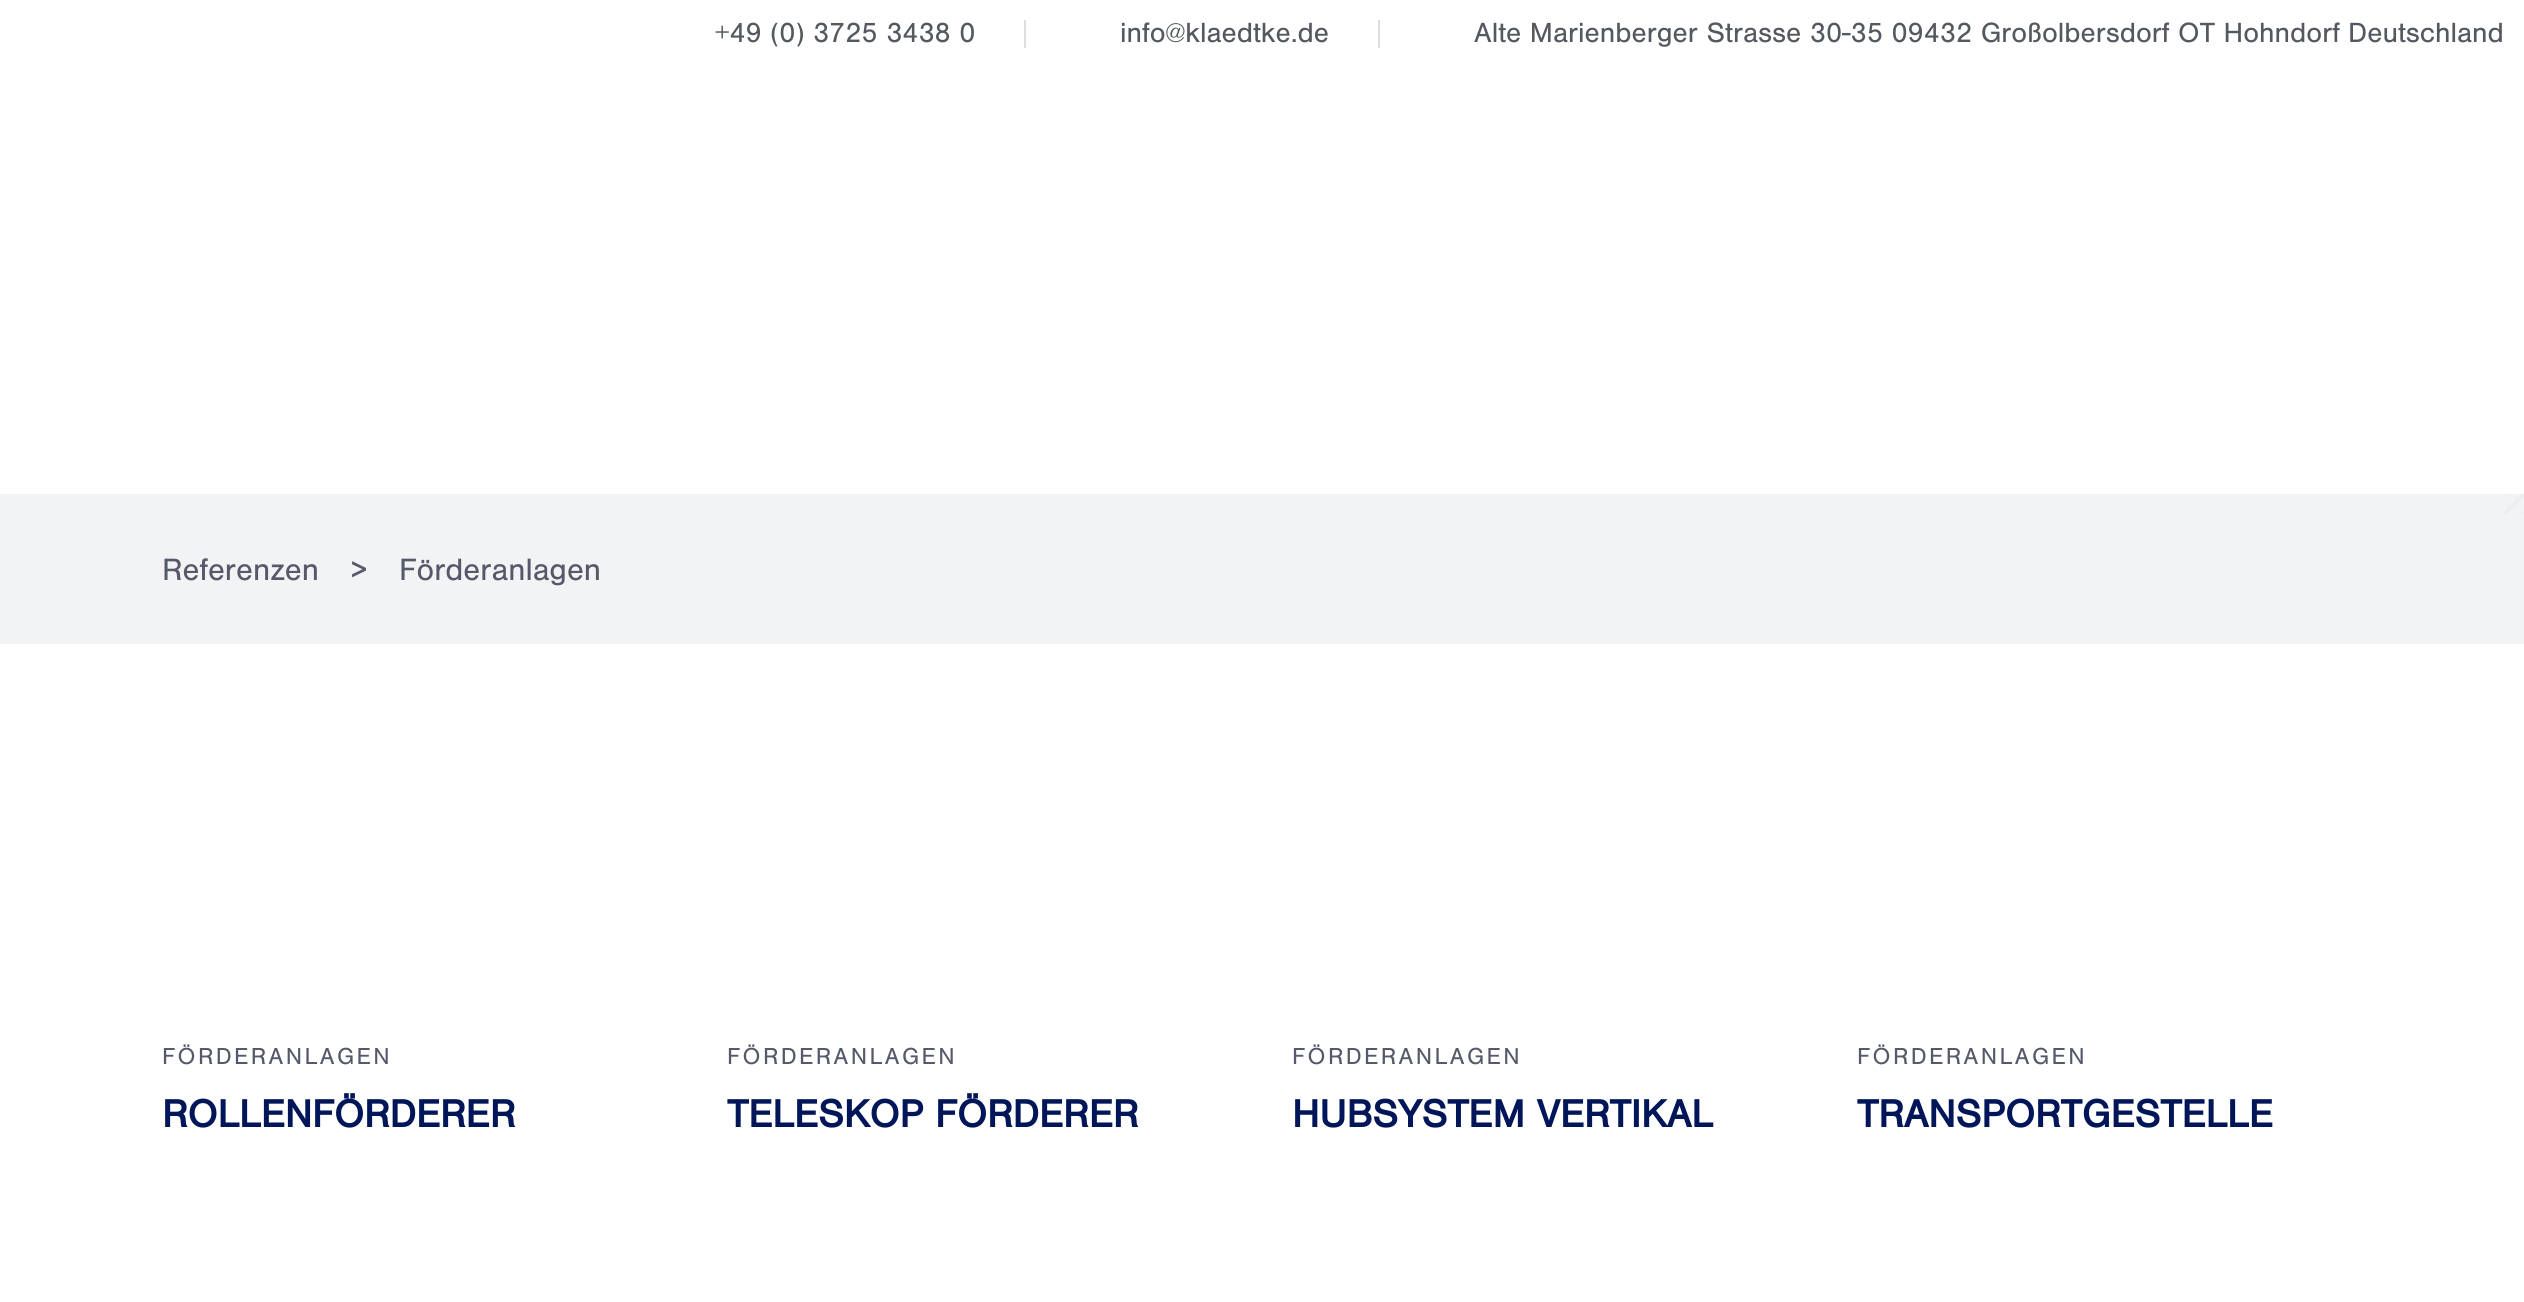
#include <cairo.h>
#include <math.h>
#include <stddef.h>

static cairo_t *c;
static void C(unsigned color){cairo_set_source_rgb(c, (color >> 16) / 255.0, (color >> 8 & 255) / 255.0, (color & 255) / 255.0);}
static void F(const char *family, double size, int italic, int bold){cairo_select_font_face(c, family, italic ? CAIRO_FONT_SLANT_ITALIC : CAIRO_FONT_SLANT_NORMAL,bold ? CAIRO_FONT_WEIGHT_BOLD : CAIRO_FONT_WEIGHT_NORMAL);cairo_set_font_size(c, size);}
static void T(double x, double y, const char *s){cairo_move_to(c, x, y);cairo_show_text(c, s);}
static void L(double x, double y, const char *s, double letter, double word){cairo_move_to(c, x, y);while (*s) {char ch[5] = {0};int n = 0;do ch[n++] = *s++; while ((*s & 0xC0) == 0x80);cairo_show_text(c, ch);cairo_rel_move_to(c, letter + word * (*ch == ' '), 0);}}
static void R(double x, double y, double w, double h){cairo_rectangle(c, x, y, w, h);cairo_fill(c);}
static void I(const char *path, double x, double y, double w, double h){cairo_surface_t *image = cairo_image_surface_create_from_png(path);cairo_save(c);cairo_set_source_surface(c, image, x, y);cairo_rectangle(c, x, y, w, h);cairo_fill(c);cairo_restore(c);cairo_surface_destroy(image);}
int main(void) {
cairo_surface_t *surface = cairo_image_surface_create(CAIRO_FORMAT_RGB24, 2524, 1302);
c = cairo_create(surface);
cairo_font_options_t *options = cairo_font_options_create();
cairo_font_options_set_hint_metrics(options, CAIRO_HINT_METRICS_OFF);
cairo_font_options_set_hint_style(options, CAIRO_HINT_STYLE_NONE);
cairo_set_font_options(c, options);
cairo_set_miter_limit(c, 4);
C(0xffffff);
cairo_paint(c);
F("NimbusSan",28.8,0,0);
C(0x54595f);
T(715,42,"+49 (0) 3725 3438 0");
C(0xdddddd);
R(1024,20,2,28);
C(0x54595f);
T(1120,42,"info@klaedtke.de");
C(0xdddddd);
R(1378,20,2,28);
C(0x54595f);
T(1474,42,"Alte Marienberger Strasse 30-35 09432 Großolbersdorf OT Hohndorf");
T(2348,42,"Deutschland");
C(0xf2f3f5);
R(0,494,2524,150);
I("1.png",2504,494,20,20);
F("NimbusSan",32,0,0);
C(0x565969);
T(162,580,"Referenzen");
T(351,580,">");
T(399,580,"Förderanlagen");
F("NimbusSan",24,0,0);
L(162,1064,"FÖRDERANLAGEN",2.4,0);
F("NimbusSan",40,0,1);
C(0x001659);
T(162,1127,"ROLLENFÖRDERER");
F("NimbusSan",24,0,0);
C(0x565969);
L(727,1064,"FÖRDERANLAGEN",2.4,0);
F("NimbusSan",40,0,1);
C(0x001659);
T(727,1127,"TELESKOP FÖRDERER");
F("NimbusSan",24,0,0);
C(0x565969);
L(1292,1064,"FÖRDERANLAGEN",2.4,0);
F("NimbusSan",40,0,1);
C(0x001659);
T(1292,1127,"HUBSYSTEM VERTIKAL");
F("NimbusSan",24,0,0);
C(0x565969);
L(1857,1064,"FÖRDERANLAGEN",2.4,0);
F("NimbusSan",40,0,1);
C(0x001659);
T(1857,1127,"TRANSPORTGESTELLE");
cairo_surface_write_to_png(surface, "o.png");
cairo_font_options_destroy(options);
cairo_destroy(c);
cairo_surface_destroy(surface);
return 0;
}
